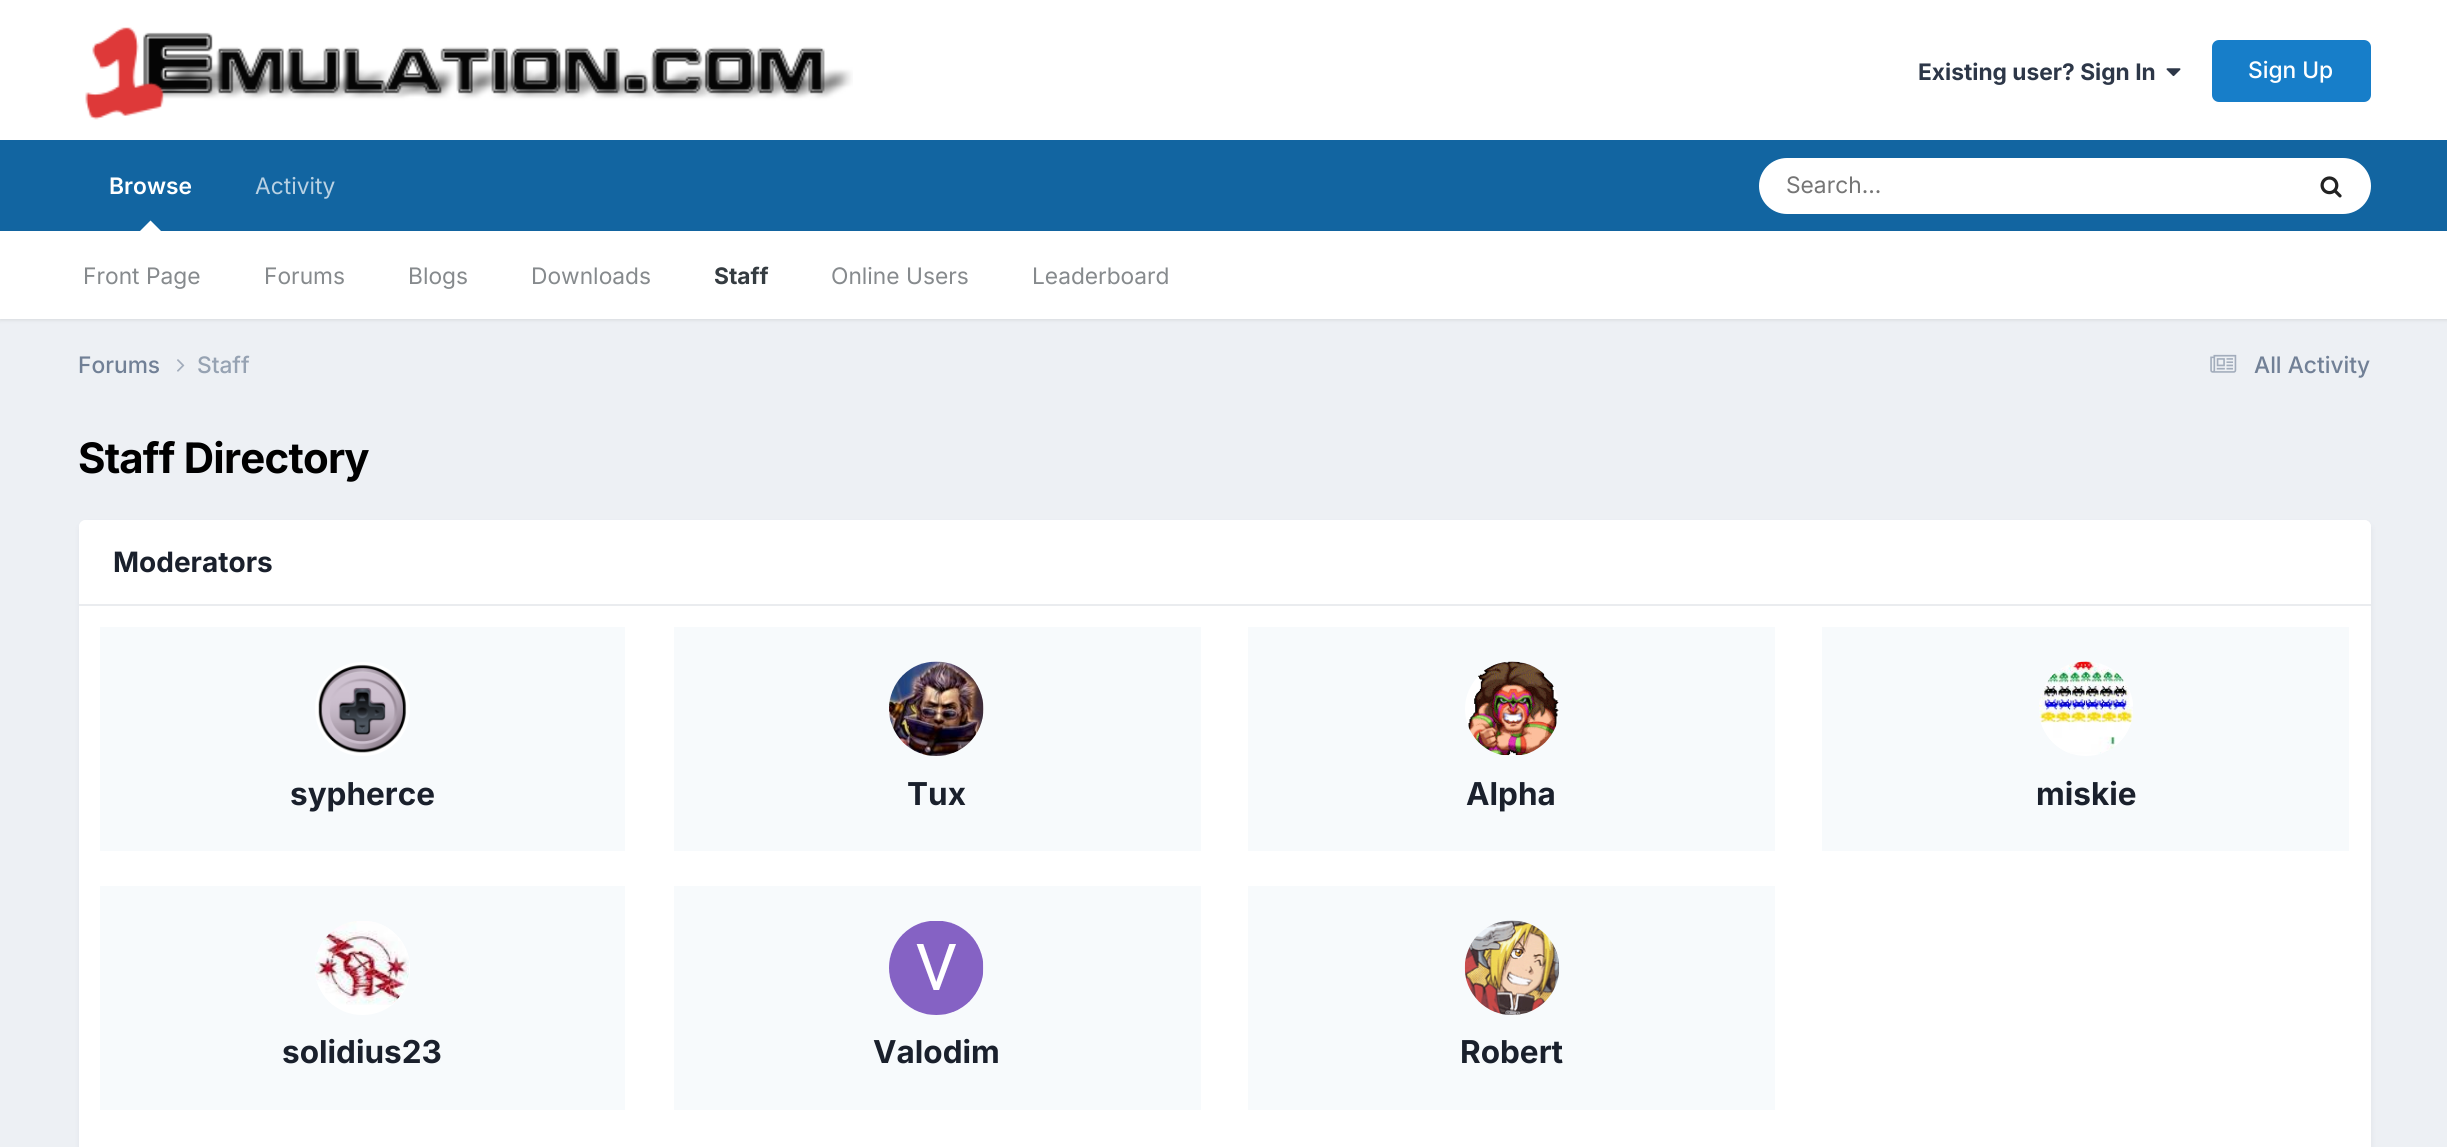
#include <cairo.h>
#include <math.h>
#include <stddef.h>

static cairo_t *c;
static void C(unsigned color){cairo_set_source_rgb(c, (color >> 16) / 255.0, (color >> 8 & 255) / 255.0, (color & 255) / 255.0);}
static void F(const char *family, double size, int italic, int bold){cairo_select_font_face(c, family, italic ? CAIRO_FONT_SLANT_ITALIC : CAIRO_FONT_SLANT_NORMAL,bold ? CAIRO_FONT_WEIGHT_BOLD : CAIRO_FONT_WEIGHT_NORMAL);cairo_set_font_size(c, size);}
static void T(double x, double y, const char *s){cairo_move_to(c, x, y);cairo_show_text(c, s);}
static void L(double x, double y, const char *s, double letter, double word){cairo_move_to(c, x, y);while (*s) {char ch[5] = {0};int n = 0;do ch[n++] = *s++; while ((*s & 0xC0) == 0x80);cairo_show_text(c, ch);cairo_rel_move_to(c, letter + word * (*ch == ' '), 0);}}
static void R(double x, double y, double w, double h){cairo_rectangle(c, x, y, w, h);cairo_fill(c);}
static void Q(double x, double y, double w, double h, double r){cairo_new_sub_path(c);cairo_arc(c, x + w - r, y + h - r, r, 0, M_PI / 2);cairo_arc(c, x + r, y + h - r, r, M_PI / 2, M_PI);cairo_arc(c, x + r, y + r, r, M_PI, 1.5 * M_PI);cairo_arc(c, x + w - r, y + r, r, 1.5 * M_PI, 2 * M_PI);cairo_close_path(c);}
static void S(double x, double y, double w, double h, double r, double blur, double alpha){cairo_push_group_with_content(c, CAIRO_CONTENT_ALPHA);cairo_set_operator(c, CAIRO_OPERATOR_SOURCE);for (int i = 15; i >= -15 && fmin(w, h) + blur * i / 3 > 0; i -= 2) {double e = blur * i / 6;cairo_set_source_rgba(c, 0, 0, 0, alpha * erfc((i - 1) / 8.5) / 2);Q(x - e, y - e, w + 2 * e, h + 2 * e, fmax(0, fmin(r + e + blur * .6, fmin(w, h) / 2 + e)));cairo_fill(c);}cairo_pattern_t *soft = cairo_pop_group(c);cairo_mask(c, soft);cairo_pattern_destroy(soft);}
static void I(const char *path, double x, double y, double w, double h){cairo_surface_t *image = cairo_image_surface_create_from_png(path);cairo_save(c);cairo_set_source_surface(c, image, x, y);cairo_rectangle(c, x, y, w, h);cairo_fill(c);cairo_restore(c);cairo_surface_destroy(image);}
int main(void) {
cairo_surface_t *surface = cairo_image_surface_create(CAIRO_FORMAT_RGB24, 2447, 1147);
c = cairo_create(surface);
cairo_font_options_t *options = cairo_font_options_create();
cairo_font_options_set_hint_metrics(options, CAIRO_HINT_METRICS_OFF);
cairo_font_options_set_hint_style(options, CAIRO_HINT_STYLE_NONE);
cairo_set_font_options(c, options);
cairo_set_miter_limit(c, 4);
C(0xedf0f4);
cairo_paint(c);
C(0xffffff);
R(0,0,2447,140);
I("1.png",85,27,768,93);
F("Inter",22.75,0,1);
C(0x2d3748);
T(1918,80,"Existing user? Sign In");
I("2.png",2166,68,15,9);
C(0x177ec9);
Q(2212,40,159,62,7);
cairo_fill(c);
F("Inter Medium",22.75,0,0);
C(0xffffff);
T(2248,78,"Sign Up");
C(0x1265a1);
R(0,140,2447,91);
F("Inter",22.75,0,0);
C(0xb8d1e3);
T(255,194,"Activity");
F("Inter SemiBold",22.75,0,0);
C(0xffffff);
T(109,194,"Browse");
C(0x000000);
S(0,233,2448,87,0,2,.1);
C(0xffffff);
cairo_new_path(c);
cairo_move_to(c,161,231);
cairo_line_to(c,140,231);
cairo_line_to(c,150.5,220.5);
cairo_close_path(c);
cairo_fill(c);
R(0,231,2447,88);
F("Inter",22.75,0,0);
C(0x868a8d);
T(83,284,"Front Page");
T(264,284,"Forums");
T(408,284,"Blogs");
T(531,284,"Downloads");
F("Inter",22.75,0,1);
C(0x353c41);
T(714,284,"Staff");
F("Inter",22.75,0,0);
C(0x868a8d);
T(831,284,"Online Users");
T(1032,284,"Leaderboard");
C(0xffffff);
Q(1759,158,612,56,28);
cairo_fill(c);
C(0x757575);
T(1786,193,"Search...");
I("3.png",2320,176,22,22);
F("Inter Medium",22.75,0,0);
C(0x718096);
T(78,373,"Forums");
I("4.png",177,359,8,13);
C(0x96a2b2);
T(197,373,"Staff");
I("5.png",2210,354,27,19);
C(0x718096);
T(2254,373,"All Activity");
F("Inter",42,0,1);
C(0x000000);
L(78,473,"Staff Directory",-.8,0);
C(0x2d3748);
S(81,525,2289,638,5,3.5,.1);
C(0xffffff);
Q(79,520,2292,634,7);
cairo_fill(c);
cairo_new_path(c);
cairo_move_to(c,86,520);
cairo_line_to(c,2364,520);
cairo_curve_to(c,2368,520,2371,523,2371,527);
cairo_line_to(c,2371,606);
cairo_line_to(c,79,606);
cairo_line_to(c,79,527);
cairo_curve_to(c,79,523,82,520,86,520);
cairo_close_path(c);
cairo_fill(c);
C(0xeaecef);
R(79,604,2292,2);
F("Inter",28,0,1);
C(0x1a202c);
T(113,572,"Moderators");
C(0xf7fafc);
R(100,627,525,224);
C(0xffffff);
Q(315,662,95,94,47);
cairo_fill(c);
I("6.png",318,664,89,89);
F("Inter",31.5,0,1);
C(0x1a202c);
T(290,805,"sypherce");
C(0xf7fafc);
R(674,627,527,224);
C(0xffffff);
Q(889,662,95,94,47);
cairo_fill(c);
I("7.png",889,661,95,95);
C(0x1a202c);
T(907,805,"Tux");
C(0xf7fafc);
R(1248,627,527,224);
C(0xffffff);
cairo_new_path(c);
cairo_arc(c,1512,709,47,0,2 * M_PI);
cairo_fill(c);
I("8.png",1468,661,91,95);
C(0x1a202c);
T(1466,805,"Alpha");
C(0xf7fafc);
R(1822,627,527,224);
C(0xffffff);
cairo_new_path(c);
cairo_arc(c,2086,709,47,0,2 * M_PI);
cairo_fill(c);
I("9.png",2039,661,94,93);
C(0x1a202c);
T(2036,805,"miskie");
C(0xf7fafc);
R(100,886,525,224);
C(0xffffff);
Q(315,921,95,94,47);
cairo_fill(c);
I("10.png",315,921,94,84);
C(0x1a202c);
T(282,1063,"solidius23");
C(0xf7fafc);
R(674,886,527,224);
C(0xffffff);
Q(889,921,95,94,47);
cairo_fill(c);
I("11.png",889,921,95,94);
C(0x1a202c);
T(873,1063,"Valodim");
C(0xf7fafc);
R(1248,886,527,224);
I("12.png",1464,920,96,95);
C(0x1a202c);
T(1460,1063,"Robert");
cairo_surface_write_to_png(surface, "o.png");
cairo_font_options_destroy(options);
cairo_destroy(c);
cairo_surface_destroy(surface);
return 0;
}
